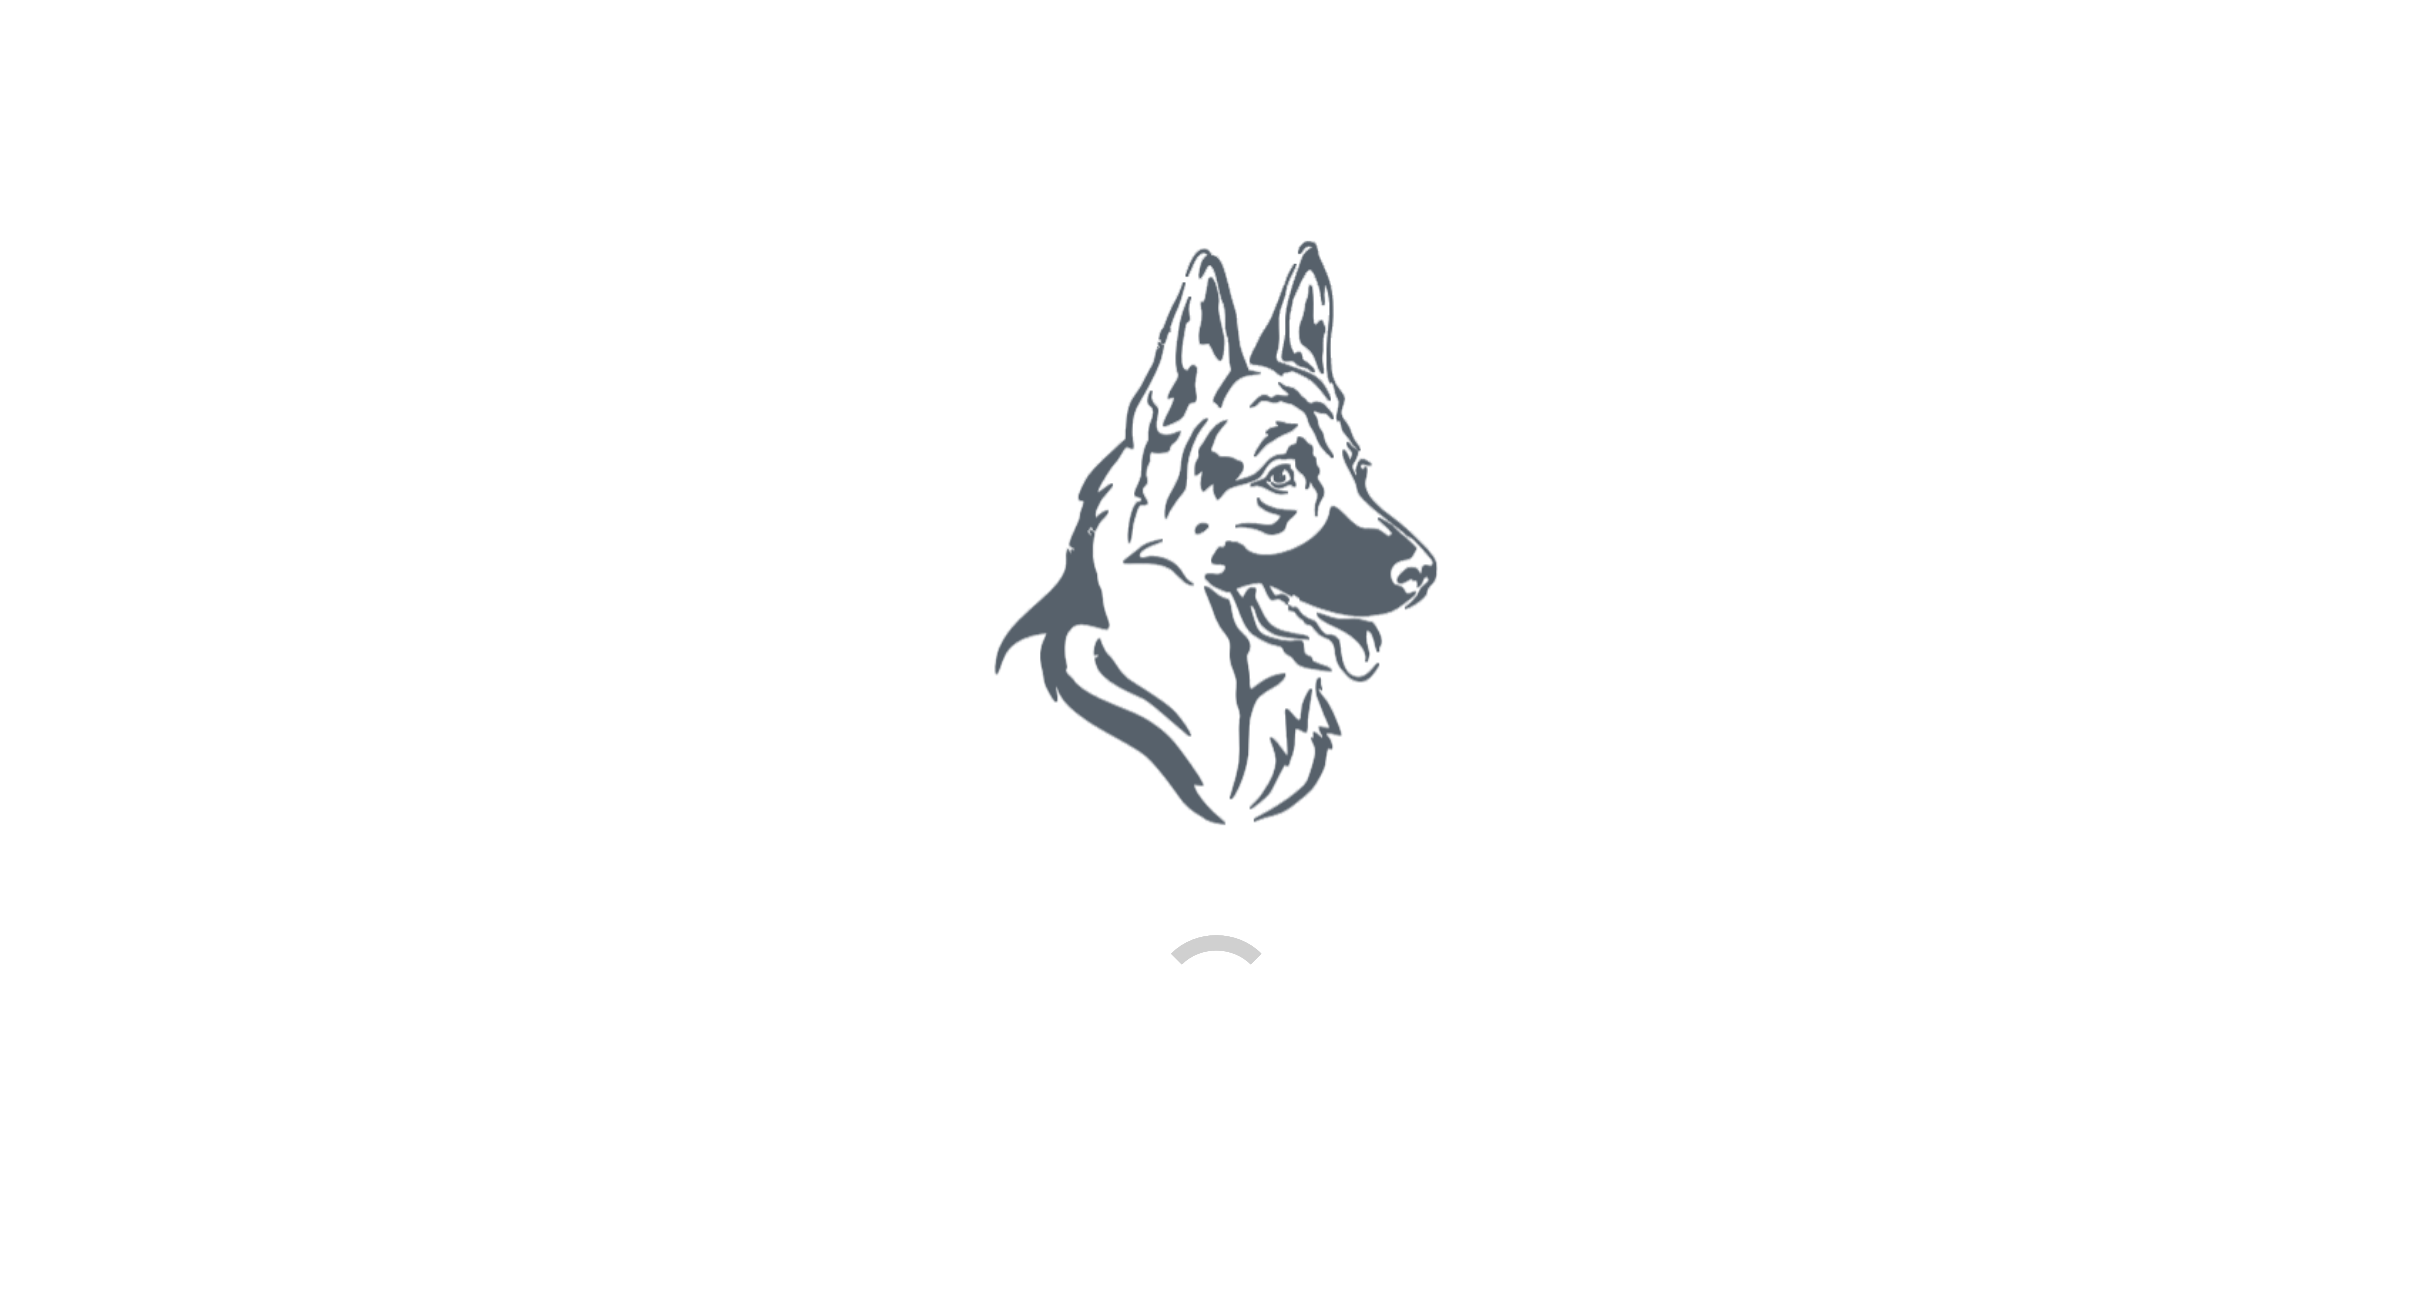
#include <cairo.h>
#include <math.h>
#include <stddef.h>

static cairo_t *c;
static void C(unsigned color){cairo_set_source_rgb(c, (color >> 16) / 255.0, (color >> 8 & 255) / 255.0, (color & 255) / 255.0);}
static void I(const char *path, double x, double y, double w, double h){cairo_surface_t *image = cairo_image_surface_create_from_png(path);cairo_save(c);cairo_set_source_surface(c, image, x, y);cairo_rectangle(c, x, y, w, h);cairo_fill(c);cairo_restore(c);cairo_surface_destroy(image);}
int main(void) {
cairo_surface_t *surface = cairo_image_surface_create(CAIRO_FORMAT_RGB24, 2435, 1310);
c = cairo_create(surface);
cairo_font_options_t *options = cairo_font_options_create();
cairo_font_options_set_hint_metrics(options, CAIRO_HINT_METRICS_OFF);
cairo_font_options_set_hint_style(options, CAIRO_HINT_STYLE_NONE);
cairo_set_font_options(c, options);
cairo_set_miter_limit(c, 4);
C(0xffffff);
cairo_paint(c);
I("1.png",994,240,444,586);
cairo_new_path(c);
cairo_move_to(c,1176.5,959);
cairo_curve_to(c,1198,937.5,1234.5,937.5,1256,959);
C(0xd0d0d0);
cairo_set_line_width(c,15);
cairo_stroke(c);
cairo_new_path(c);
cairo_move_to(c,1176.5,959);
cairo_curve_to(c,1198,937.5,1234.5,937.5,1256,959);
cairo_stroke(c);
cairo_new_path(c);
cairo_move_to(c,1176.5,959);
cairo_curve_to(c,1198,937.5,1234.5,937.5,1256,959);
cairo_stroke(c);
cairo_new_path(c);
cairo_move_to(c,1176.5,959);
cairo_curve_to(c,1198,937.5,1234.5,937.5,1256,959);
cairo_stroke(c);
cairo_surface_write_to_png(surface, "o.png");
cairo_font_options_destroy(options);
cairo_destroy(c);
cairo_surface_destroy(surface);
return 0;
}
